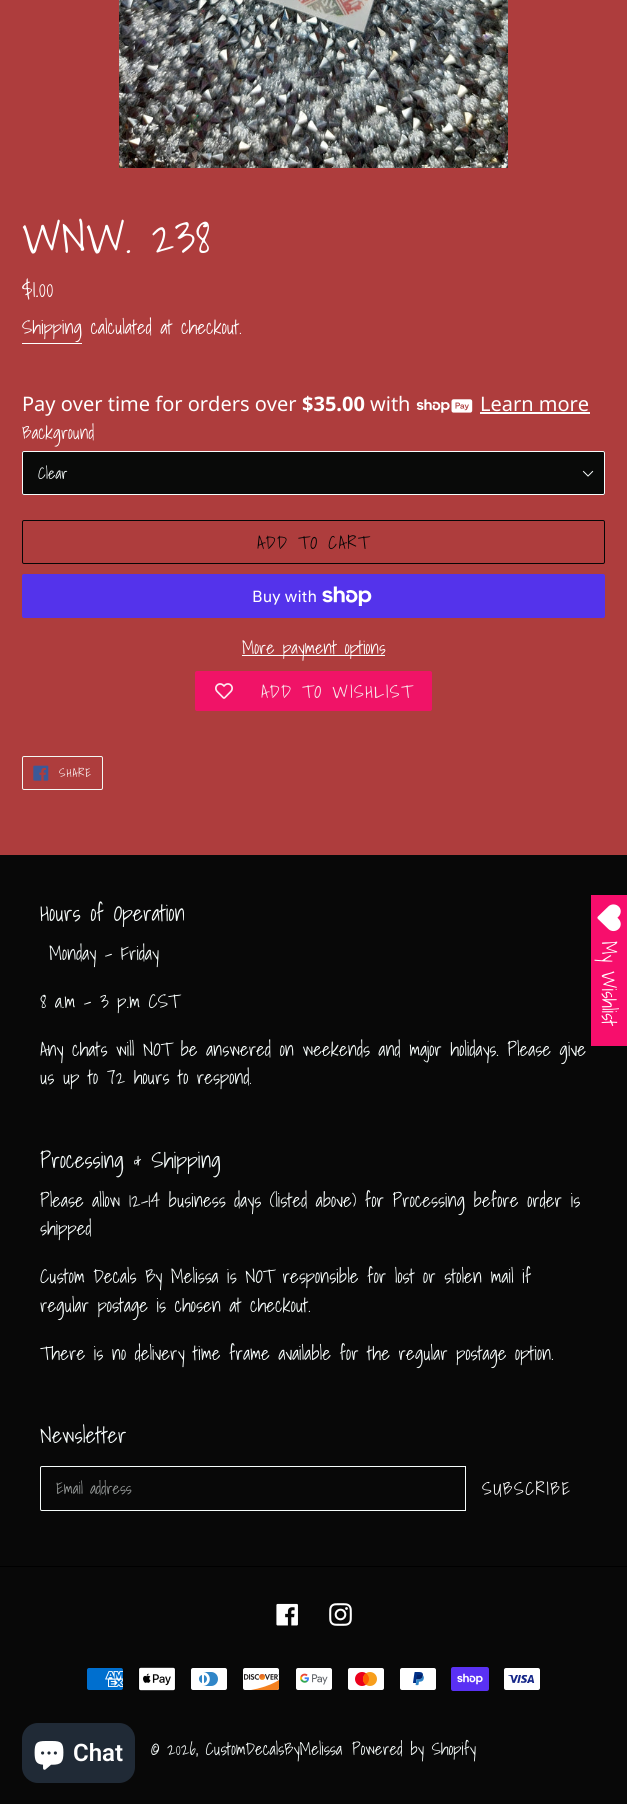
#include <cairo.h>
#include <math.h>
#include <stddef.h>

static cairo_t *c;
static void C(unsigned color){cairo_set_source_rgb(c, (color >> 16) / 255.0, (color >> 8 & 255) / 255.0, (color & 255) / 255.0);}
static void F(const char *family, double size, int italic, int bold){cairo_select_font_face(c, family, italic ? CAIRO_FONT_SLANT_ITALIC : CAIRO_FONT_SLANT_NORMAL,bold ? CAIRO_FONT_WEIGHT_BOLD : CAIRO_FONT_WEIGHT_NORMAL);cairo_set_font_size(c, size);}
static void T(double x, double y, const char *s){cairo_move_to(c, x, y);cairo_show_text(c, s);}
static void L(double x, double y, const char *s, double letter, double word){cairo_move_to(c, x, y);while (*s) {char ch[5] = {0};int n = 0;do ch[n++] = *s++; while ((*s & 0xC0) == 0x80);cairo_show_text(c, ch);cairo_rel_move_to(c, letter + word * (*ch == ' '), 0);}}
static void R(double x, double y, double w, double h){cairo_rectangle(c, x, y, w, h);cairo_fill(c);}
static void Q(double x, double y, double w, double h, double r){cairo_new_sub_path(c);cairo_arc(c, x + w - r, y + h - r, r, 0, M_PI / 2);cairo_arc(c, x + r, y + h - r, r, M_PI / 2, M_PI);cairo_arc(c, x + r, y + r, r, M_PI, 1.5 * M_PI);cairo_arc(c, x + w - r, y + r, r, 1.5 * M_PI, 2 * M_PI);cairo_close_path(c);}
static void I(const char *path, double x, double y, double w, double h){cairo_surface_t *image = cairo_image_surface_create_from_png(path);cairo_save(c);cairo_set_source_surface(c, image, x, y);cairo_rectangle(c, x, y, w, h);cairo_fill(c);cairo_restore(c);cairo_surface_destroy(image);}
int main(void) {
cairo_surface_t *surface = cairo_image_surface_create(CAIRO_FORMAT_RGB24, 627, 1804);
c = cairo_create(surface);
cairo_font_options_t *options = cairo_font_options_create();
cairo_font_options_set_hint_metrics(options, CAIRO_HINT_METRICS_OFF);
cairo_font_options_set_hint_style(options, CAIRO_HINT_STYLE_NONE);
cairo_set_font_options(c, options);
cairo_set_miter_limit(c, 4);
C(0xae3d3d);
cairo_paint(c);
I("1.png",119,0,389,168);
F("Shadows Into Light",45,0,0);
C(0xffffff);
T(22,253,"WNW. 238");
F("Shadows Into Light",24,0,0);
T(22,297,"$1.00");
F("Shadows Into Light",19,0,0);
T(22,334,"Shipping calculated at checkout.");
R(22,343,60,1);
F("Noto Sans",20,0,0);
T(22,411,"Pay over time for orders over");
F("Noto Sans",20,0,1);
T(302,411,"$35.00");
F("Noto Sans",20,0,0);
T(370,411,"with");
I("2.png",416,399,57,14);
T(480,411,"Learn more");
R(480,412,110,2);
F("Shadows Into Light",18,0,0);
T(22,439,"Background");
C(0x090a09);
Q(22,451,583,44,2);
cairo_fill(c);
I("3.png",582,470,12,7);
Q(22.5,451.5,582,43,1.5);
C(0xf6fcfb);
cairo_set_line_width(c,1);
cairo_stroke(c);
F("Shadows Into Light",16,0,0);
T(38,479,"Clear");
Q(22.5,520.5,582,43,1.5);
C(0x060606);
cairo_stroke(c);
F("Shadows Into Light",18,0,0);
L(257,549,"ADD TO CART",1.5,0);
C(0x5433eb);
Q(22,574,583,44,2);
cairo_fill(c);
F("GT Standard",16,0,0);
C(0xffffff);
T(252,602,"Buy with");
I("4.png",322,586,50,20);
R(242,655,143,1);
F("Shadows Into Light",18,0,0);
T(242,654,"More payment options");
C(0xf01367);
Q(195,671,237,40,2);
cairo_fill(c);
I("5.png",215,683,18,16);
C(0xf7ecec);
L(261,698,"ADD TO WISHLIST",1.5,0);
Q(22.5,756.5,80,33,1.5);
C(0xf4f9f4);
cairo_stroke(c);
I("6.png",33,765,16,16);
F("Shadows Into Light",12,0,0);
C(0xffffff);
L(59,777,"SHARE",1,0);
C(0x080808);
R(0,855,627,949);
F("Shadows Into Light",22,0,0);
C(0xf6fcfb);
T(40,921,"Hours of Operation");
F("Shadows Into Light",19,0,0);
T(49,960,"Monday - Friday");
T(40,1008,"8 a.m - 3 p.m CST");
T(40,1056,"Any chats will NOT be answered on weekends and major holidays. Please give");
T(40,1084,"us up to 72 hours to respond.");
F("Shadows Into Light",22,0,0);
T(40,1168,"Processing & Shipping");
F("Shadows Into Light",19,0,0);
T(40,1207,"Please allow 12-14 business days (listed above) for Processing before order is");
T(40,1235,"shipped");
T(40,1283,"Custom Decals By Melissa is NOT responsible for lost or stolen mail if");
T(40,1312,"regular postage is chosen at checkout.");
T(40,1360,"There is no delivery time frame available for the regular postage option.");
F("Shadows Into Light",22,0,0);
T(40,1443,"Newsletter");
cairo_new_path(c);
cairo_move_to(c,42,1466.5);
cairo_line_to(c,465.5,1466.5);
cairo_line_to(c,465.5,1510.5);
cairo_line_to(c,42,1510.5);
cairo_curve_to(c,41,1510.5,40.5,1510,40.5,1509);
cairo_line_to(c,40.5,1468);
cairo_curve_to(c,40.5,1467,41,1466.5,42,1466.5);
cairo_close_path(c);
cairo_stroke(c);
F("Shadows Into Light",16,0,0);
C(0x979b9a);
T(56,1494,"Email address");
F("Shadows Into Light",18,0,0);
C(0xffffff);
L(482,1495,"SUBSCRIBE",1.5,0);
C(0x000000);
R(0,1566,627,1);
I("7.png",276,1603,22,23);
I("8.png",329,1603,23,23);
I("9.png",87,1668,36,22);
I("10.png",138,1667,38,24);
I("11.png",191,1668,36,22);
I("12.png",243,1668,36,22);
I("13.png",296,1668,36,22);
I("14.png",348,1668,36,22);
I("15.png",400,1668,36,22);
I("16.png",451,1667,38,24);
I("17.png",504,1668,36,22);
F("Shadows Into Light",17,0,0);
C(0xf6fcfb);
T(151,1755,"© 2026, CustomDecalsByMelissa");
T(352,1755,"Powered by Shopify");
C(0xf70e6c);
R(591,895,36,151);
I("18.png",597,904,24,28);
F("Shadows Into Light",20,0,0);
C(0xffffff);
cairo_save(c);
cairo_translate(c,602,941);
cairo_rotate(c,90 * M_PI / 180);
T(0,0,"My Wishlist");
cairo_restore(c);
C(0x202a36);
Q(22,1723,113,60,16);
cairo_fill(c);
I("19.png",34,1741,30,29);
F("Roboto SemiBold",24,0,0);
C(0xffffff);
T(73,1761,"Chat");
cairo_surface_write_to_png(surface, "o.png");
cairo_font_options_destroy(options);
cairo_destroy(c);
cairo_surface_destroy(surface);
return 0;
}
